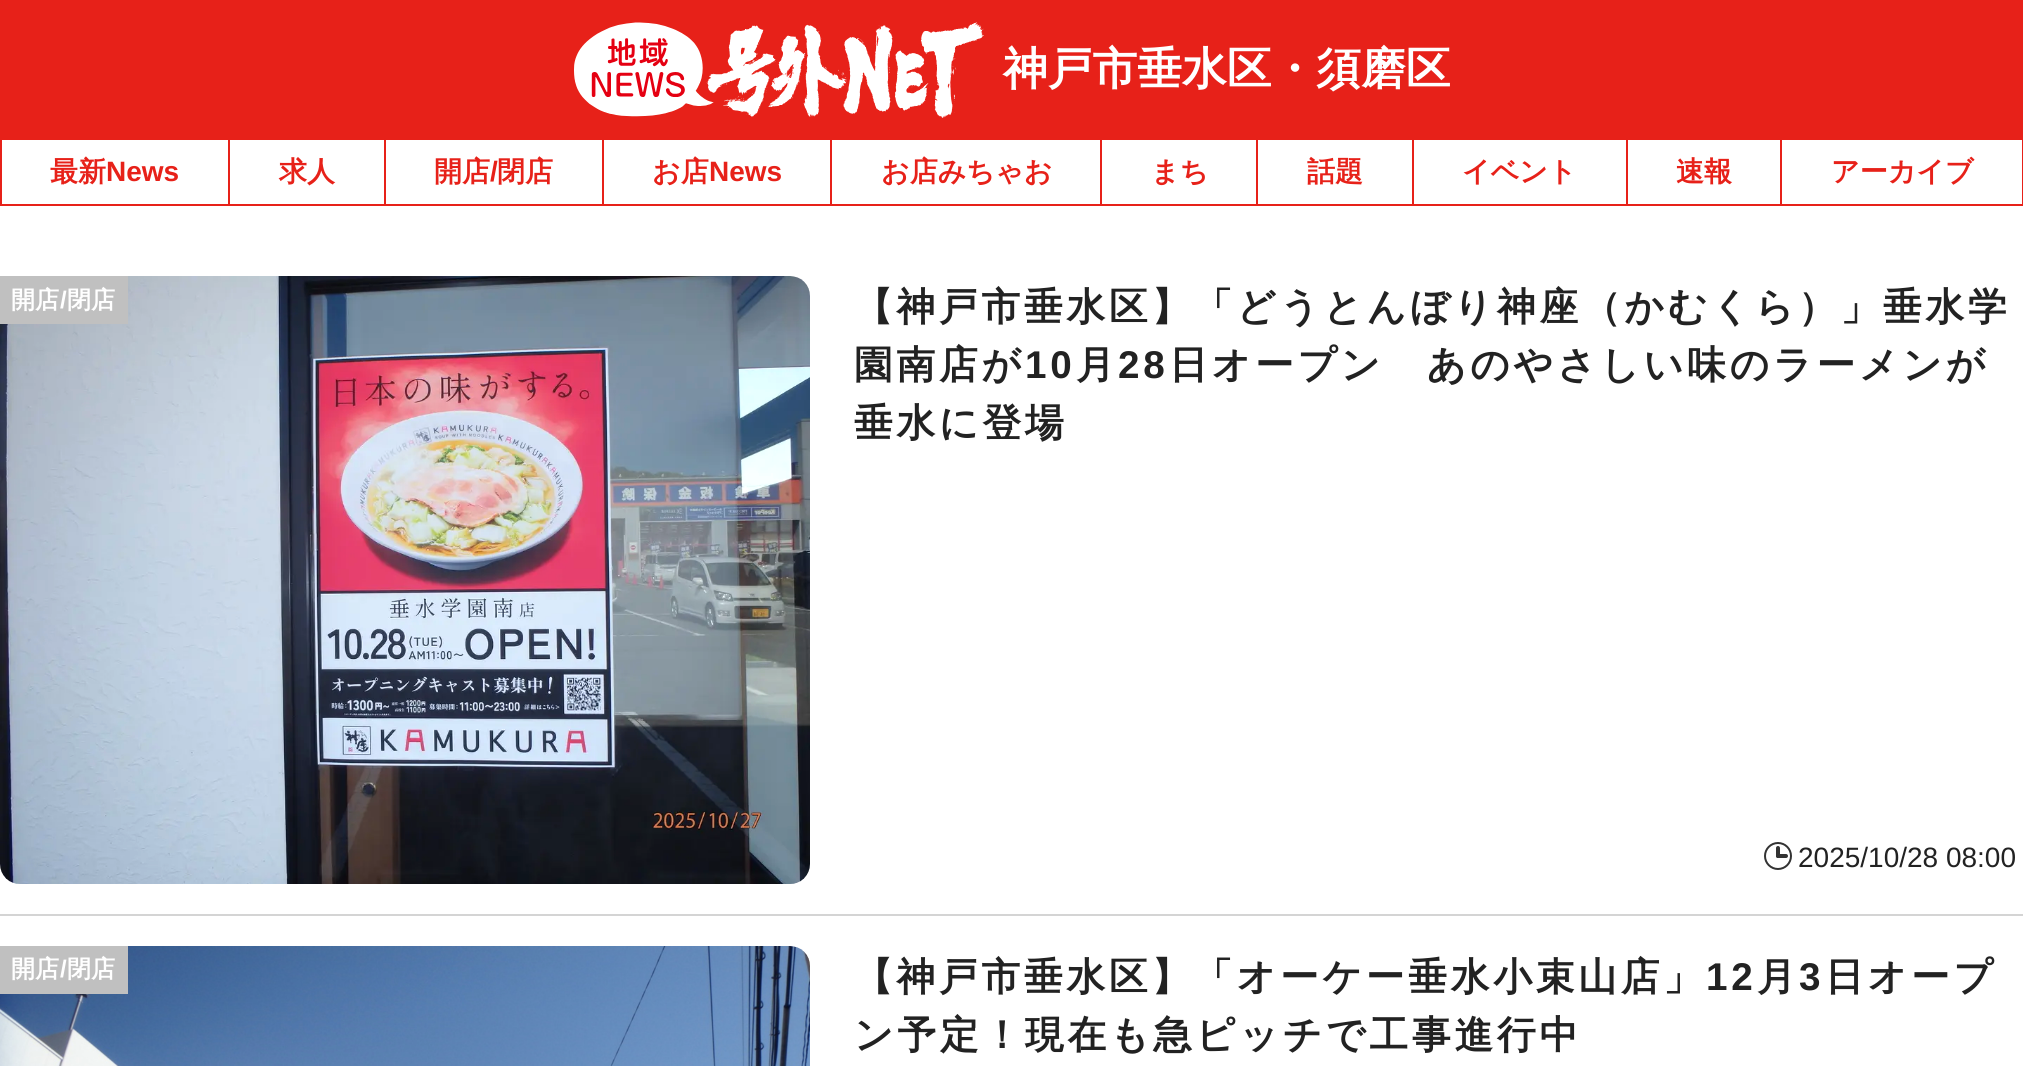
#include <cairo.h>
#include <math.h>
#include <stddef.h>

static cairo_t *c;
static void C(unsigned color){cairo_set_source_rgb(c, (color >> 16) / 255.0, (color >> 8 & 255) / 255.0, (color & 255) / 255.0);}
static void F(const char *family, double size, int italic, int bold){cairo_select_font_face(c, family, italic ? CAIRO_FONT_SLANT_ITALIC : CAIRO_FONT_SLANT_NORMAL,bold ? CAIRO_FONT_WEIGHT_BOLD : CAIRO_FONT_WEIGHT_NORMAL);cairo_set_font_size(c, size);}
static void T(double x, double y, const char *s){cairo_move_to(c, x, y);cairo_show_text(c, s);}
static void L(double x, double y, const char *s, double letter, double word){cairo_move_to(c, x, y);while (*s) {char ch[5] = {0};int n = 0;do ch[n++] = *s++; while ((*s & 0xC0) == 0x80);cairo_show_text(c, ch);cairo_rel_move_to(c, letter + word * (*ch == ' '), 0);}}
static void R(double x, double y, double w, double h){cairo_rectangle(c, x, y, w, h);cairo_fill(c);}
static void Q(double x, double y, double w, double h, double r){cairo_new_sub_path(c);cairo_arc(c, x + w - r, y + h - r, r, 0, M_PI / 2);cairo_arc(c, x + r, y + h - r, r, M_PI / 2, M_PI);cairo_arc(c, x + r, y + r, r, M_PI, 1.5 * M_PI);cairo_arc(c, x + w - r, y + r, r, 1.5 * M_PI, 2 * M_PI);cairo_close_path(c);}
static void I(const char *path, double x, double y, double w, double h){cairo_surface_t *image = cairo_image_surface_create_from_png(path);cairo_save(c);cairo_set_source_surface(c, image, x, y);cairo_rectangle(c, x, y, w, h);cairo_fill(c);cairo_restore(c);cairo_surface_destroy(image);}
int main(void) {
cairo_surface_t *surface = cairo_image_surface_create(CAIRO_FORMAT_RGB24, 2023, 1066);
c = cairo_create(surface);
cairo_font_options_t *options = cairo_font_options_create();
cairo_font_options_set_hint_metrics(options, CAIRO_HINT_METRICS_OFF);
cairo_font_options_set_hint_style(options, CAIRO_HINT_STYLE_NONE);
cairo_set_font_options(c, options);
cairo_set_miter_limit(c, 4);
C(0xffffff);
cairo_paint(c);
C(0xe72119);
R(0,0,2023,140);
I("1.png",574,22,410,96);
F("WenQuanYi Zen Hei",44.75,0,1);
C(0xffffff);
T(1003,84,"神戸市垂水区・須磨区");
C(0xe72119);
R(0,204,2023,2);
R(228,140,2,64);
R(0,140,2,64);
F("WenQuanYi Zen Hei",28,0,1);
T(50,181,"最新");
F("Liberation Sans",28,0,1);
T(106,181,"News");
R(384,140,2,64);
F("WenQuanYi Zen Hei",28,0,1);
T(279,181,"求人");
R(602,140,2,64);
T(434,181,"開店");
F("Liberation Sans",28,0,1);
T(490,181,"/");
F("WenQuanYi Zen Hei",28,0,1);
T(497,181,"閉店");
R(830,140,2,64);
T(652,181,"お店");
F("Liberation Sans",28,0,1);
T(709,181,"News");
R(1100,140,2,64);
F("WenQuanYi Zen Hei",28,0,1);
T(881,181,"お店みちゃお");
R(1256,140,2,64);
T(1151,181,"まち");
R(1412,140,2,64);
T(1307,181,"話題");
R(1626,140,2,64);
T(1462,181,"イベント");
R(1780,140,2,64);
T(1676,181,"速報");
R(2022,140,1,64);
T(1831,181,"アーカイブ");
I("2.png",0,276,810,608);
C(0xc0c0c0);
R(0,276,128,48);
F("WenQuanYi Zen Hei",24,0,1);
C(0xffffff);
T(11,308,"開店");
F("Liberation Sans",24,0,1);
T(60,308,"/");
F("WenQuanYi Zen Hei",24,0,1);
T(67,308,"閉店");
F("WenQuanYi Zen Hei",38.65,0,1);
C(0x222222);
L(854,320,"【神戸市垂水区】「どうとんぼり神座（かむくら）」垂水学",3.85,0);
L(854,378,"園南店が",3.85,0);
F("Liberation Sans",38.65,0,1);
L(1025,378,"10",3.85,0);
F("WenQuanYi Zen Hei",38.65,0,1);
L(1076,378,"月",3.85,0);
F("Liberation Sans",38.65,0,1);
L(1118,378,"28",3.85,0);
F("WenQuanYi Zen Hei",38.65,0,1);
L(1169,378,"日オープン　あのやさしい味のラーメンが",3.85,0);
L(854,436,"垂水に登場",3.85,0);
cairo_new_path(c);
cairo_arc(c,1778,856,13,0,2 * M_PI);
C(0x333333);
cairo_stroke(c);
Q(1776,846,4,12,2);
cairo_fill(c);
Q(1776,854,12,4,2);
cairo_fill(c);
F("Liberation Sans",28,0,0);
C(0x222222);
T(1798,867,"2025/10/28 08:00");
C(0xd4d4d4);
R(0,914,2023,2);
I("3.png",0,946,810,120);
C(0xc0c0c0);
R(0,946,128,48);
F("WenQuanYi Zen Hei",24,0,1);
C(0xffffff);
T(11,977,"開店");
F("Liberation Sans",24,0,1);
T(60,977,"/");
F("WenQuanYi Zen Hei",24,0,1);
T(67,977,"閉店");
F("WenQuanYi Zen Hei",38.65,0,1);
C(0x222222);
L(854,990,"【神戸市垂水区】「オーケー垂水小束山店」",3.85,0);
F("Liberation Sans",38.65,0,1);
L(1706,990,"12",3.85,0);
F("WenQuanYi Zen Hei",38.65,0,1);
L(1757,990,"月",3.85,0);
F("Liberation Sans",38.65,0,1);
L(1799,990,"3",3.85,0);
F("WenQuanYi Zen Hei",38.65,0,1);
L(1825,990,"日オープ",3.85,0);
L(854,1048,"ン予定！現在も急ピッチで工事進行中",3.85,0);
cairo_surface_write_to_png(surface, "o.png");
cairo_font_options_destroy(options);
cairo_destroy(c);
cairo_surface_destroy(surface);
return 0;
}
